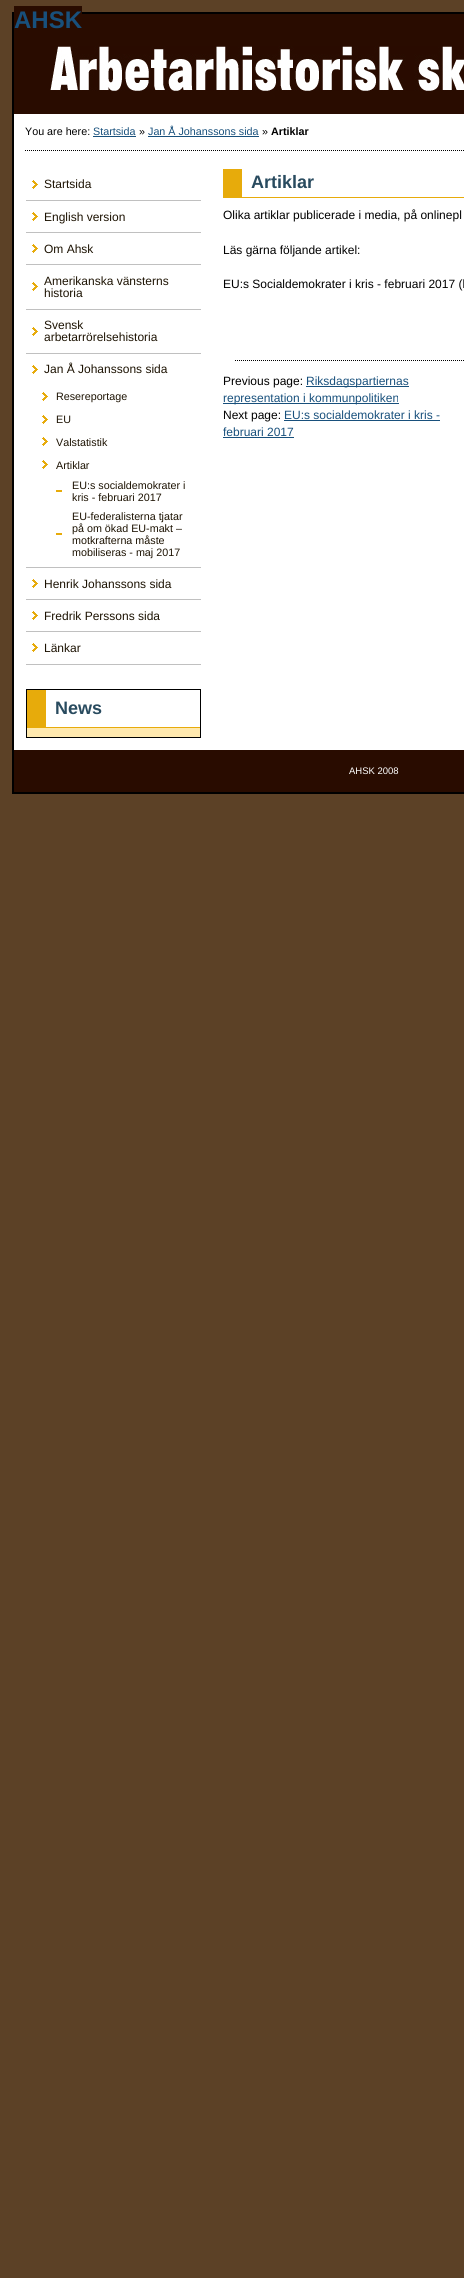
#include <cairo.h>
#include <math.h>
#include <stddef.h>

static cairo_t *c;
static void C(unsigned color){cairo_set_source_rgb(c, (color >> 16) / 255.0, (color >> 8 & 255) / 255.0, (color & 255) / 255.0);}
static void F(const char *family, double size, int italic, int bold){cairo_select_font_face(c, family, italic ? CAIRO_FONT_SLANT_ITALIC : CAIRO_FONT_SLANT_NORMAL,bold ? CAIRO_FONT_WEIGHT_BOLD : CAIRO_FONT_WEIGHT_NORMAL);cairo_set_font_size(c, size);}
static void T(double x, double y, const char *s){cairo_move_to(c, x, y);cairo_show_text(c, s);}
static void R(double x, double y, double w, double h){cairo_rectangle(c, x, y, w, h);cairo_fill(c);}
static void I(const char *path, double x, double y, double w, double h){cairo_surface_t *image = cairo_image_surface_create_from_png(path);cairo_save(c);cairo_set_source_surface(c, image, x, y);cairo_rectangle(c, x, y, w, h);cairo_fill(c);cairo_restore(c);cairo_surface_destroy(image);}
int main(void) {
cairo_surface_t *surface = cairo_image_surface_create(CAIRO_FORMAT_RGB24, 464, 2278);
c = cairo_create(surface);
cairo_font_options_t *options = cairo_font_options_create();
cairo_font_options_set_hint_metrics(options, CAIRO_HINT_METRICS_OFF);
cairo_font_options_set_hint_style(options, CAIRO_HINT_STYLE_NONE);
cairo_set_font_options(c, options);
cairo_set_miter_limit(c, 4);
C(0x5c4126);
cairo_paint(c);
C(0xffffff);
R(14,114,450,636);
cairo_rectangle(c,13,13,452,780);
C(0x000000);
cairo_stroke(c);
C(0x290c00);
R(14,14,450,100);
I("1.png",50,46,414,45);
R(14,6,68,8);
F("Liberation Sans",24,0,1);
C(0x18507c);
T(14,28,"AHSK");
cairo_new_path(c);
cairo_move_to(c,25,150.5);
cairo_line_to(c,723,150.5);
C(0x000000);
cairo_set_line_width(c,1);
cairo_set_dash(c,(double[]){1,1},2,0);
cairo_stroke(c);
F("Liberation Sans",10.75,0,0);
T(25,135,"You are here:");
C(0x18507c);
T(93,135,"Startsida");
R(93,136,43,1);
C(0x000000);
T(139,135,"»");
C(0x18507c);
T(148,135,"Jan Å Johanssons sida");
R(148,136,111,1);
C(0x000000);
T(262,135,"»");
F("Liberation Sans",10.75,0,1);
T(271,135,"Artiklar");
C(0xc0c0c0);
R(26,200,175,1);
I("2.png",32,180,6,9);
F("Liberation Sans",12,0,0);
C(0x1d1303);
T(44,188,"Startsida");
C(0xc0c0c0);
R(26,232,175,1);
I("2.png",32,212,6,9);
C(0x1d1303);
T(44,221,"English version");
C(0xc0c0c0);
R(26,264,175,1);
I("2.png",32,244,6,9);
C(0x1d1303);
T(44,253,"Om Ahsk");
C(0xc0c0c0);
R(26,309,175,1);
I("2.png",32,282,6,9);
C(0x1d1303);
T(44,285,"Amerikanska vänsterns");
T(44,297,"historia");
C(0xc0c0c0);
R(26,353,175,1);
I("2.png",32,327,6,9);
C(0x1d1303);
T(44,329,"Svensk");
T(44,341,"arbetarrörelsehistoria");
C(0xc0c0c0);
R(26,567,175,1);
I("2.png",32,365,6,9);
C(0x1d1303);
T(44,373,"Jan Å Johanssons sida");
I("2.png",42,392,6,9);
F("Liberation Sans",10.75,0,0);
T(56,400,"Resereportage");
I("2.png",42,415,6,9);
T(56,423,"EU");
I("2.png",42,437,6,9);
T(56,446,"Valstatistik");
I("2.png",42,460,6,9);
T(56,469,"Artiklar");
C(0xe7ab0b);
R(56,490,6,2);
C(0x1d1303);
T(72,489,"EU:s socialdemokrater i");
T(72,501,"kris - februari 2017");
C(0xe7ab0b);
R(56,533,6,2);
C(0x1d1303);
T(72,520,"EU-federalisterna tjatar");
T(72,532,"på om ökad EU-makt –");
T(72,544,"motkrafterna måste");
T(72,556,"mobiliseras - maj 2017");
C(0xc0c0c0);
R(26,599,175,1);
I("2.png",32,579,6,9);
F("Liberation Sans",12,0,0);
C(0x1d1303);
T(44,588,"Henrik Johanssons sida");
C(0xc0c0c0);
R(26,631,175,1);
I("2.png",32,611,6,9);
C(0x1d1303);
T(44,620,"Fredrik Perssons sida");
C(0xc0c0c0);
R(26,664,175,1);
I("2.png",32,643,6,9);
C(0x1d1303);
T(44,652,"Länkar");
C(0xffe9af);
R(27,728,173,9);
cairo_rectangle(c,26.5,689.5,174,48);
C(0x000000);
cairo_set_dash(c,NULL,0,0);
cairo_stroke(c);
C(0xe7ab0b);
R(46,727,154,1);
R(27,690,19,38);
F("Liberation Sans",18,0,1);
C(0x294b5f);
T(55,714,"News");
C(0xe7ab0b);
R(242,197,222,1);
R(223,169,19,29);
C(0x294b5f);
T(251,188,"Artiklar");
F("Liberation Sans",12,0,0);
C(0x000000);
T(223,219,"Olika artiklar publicerade i media, på onlinepl");
T(223,254,"Läs gärna följande artikel:");
T(223,288,"EU:s Socialdemokrater i kris - februari 2017 (l");
cairo_new_path(c);
cairo_move_to(c,235,360.5);
cairo_line_to(c,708,360.5);
cairo_set_dash(c,(double[]){1,1},2,0);
cairo_stroke(c);
T(223,385,"Previous page:");
C(0x18507c);
R(306,386,103,1);
T(306,385,"Riksdagspartiernas");
R(223,403,176,1);
T(223,402,"representation i kommunpolitiken");
C(0x000000);
T(223,419,"Next page:");
C(0x18507c);
T(284,419,"EU:s socialdemokrater i kris -");
R(284,420,156,1);
T(223,436,"februari 2017");
R(223,437,71,1);
C(0x290c00);
R(14,750,450,42);
F("Liberation Sans",9.5,0,0);
C(0xffffff);
T(349,774,"AHSK 2008");
cairo_surface_write_to_png(surface, "o.png");
cairo_font_options_destroy(options);
cairo_destroy(c);
cairo_surface_destroy(surface);
return 0;
}
